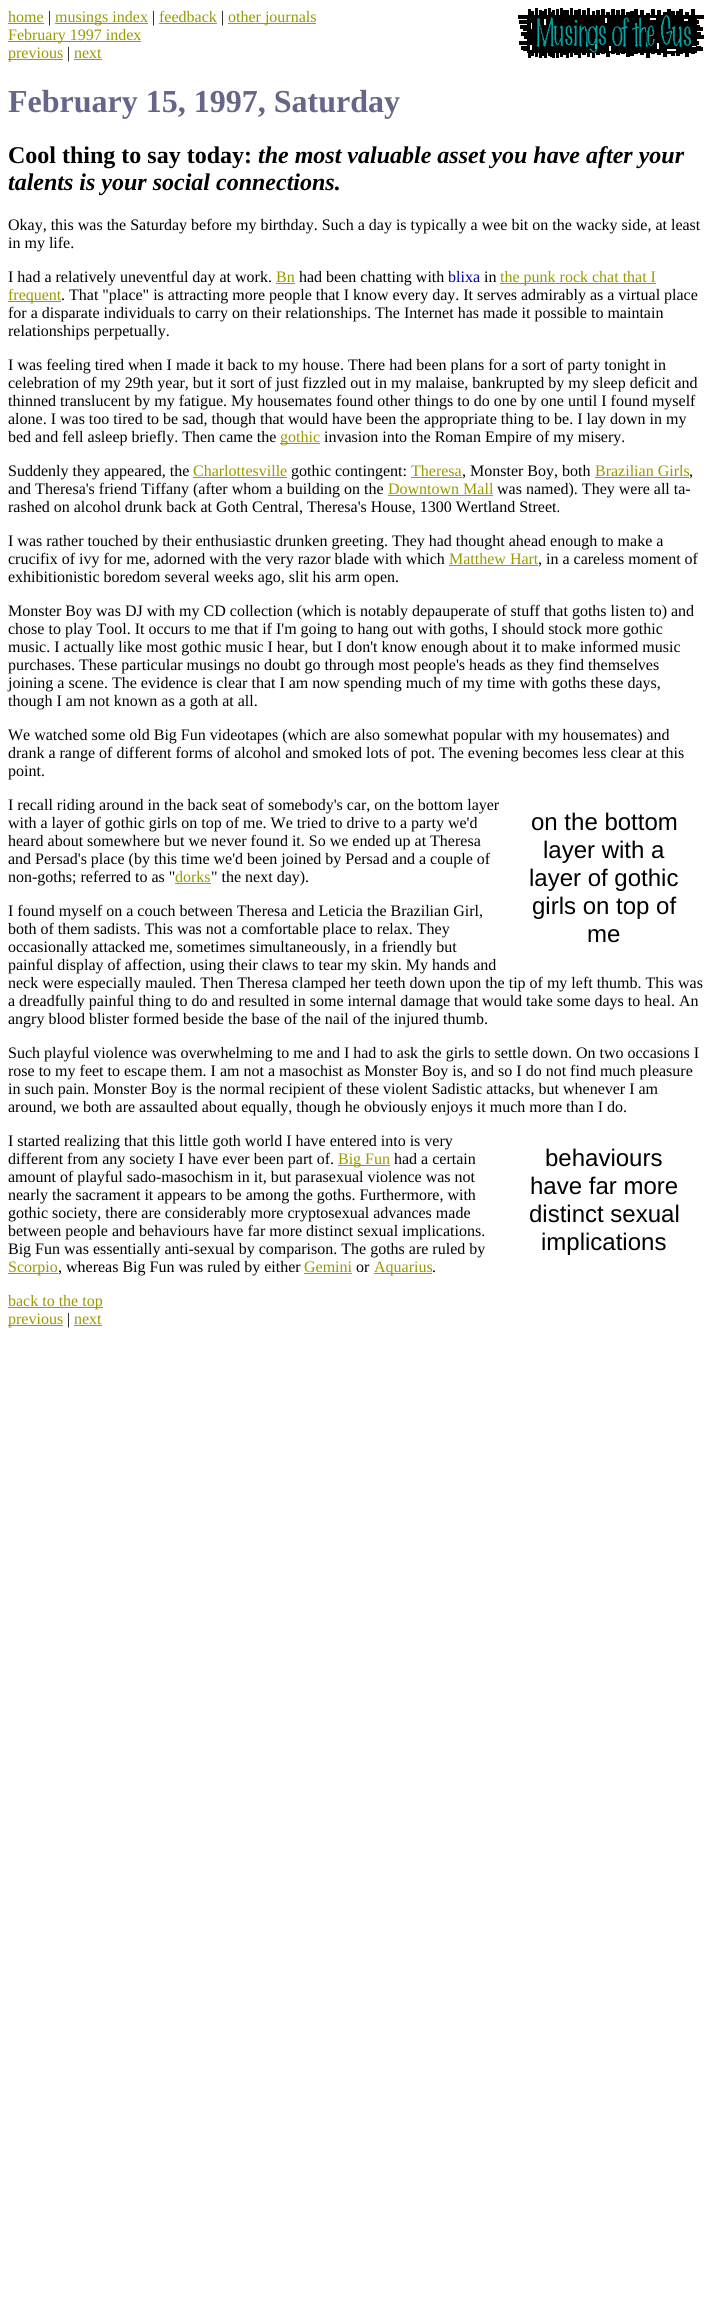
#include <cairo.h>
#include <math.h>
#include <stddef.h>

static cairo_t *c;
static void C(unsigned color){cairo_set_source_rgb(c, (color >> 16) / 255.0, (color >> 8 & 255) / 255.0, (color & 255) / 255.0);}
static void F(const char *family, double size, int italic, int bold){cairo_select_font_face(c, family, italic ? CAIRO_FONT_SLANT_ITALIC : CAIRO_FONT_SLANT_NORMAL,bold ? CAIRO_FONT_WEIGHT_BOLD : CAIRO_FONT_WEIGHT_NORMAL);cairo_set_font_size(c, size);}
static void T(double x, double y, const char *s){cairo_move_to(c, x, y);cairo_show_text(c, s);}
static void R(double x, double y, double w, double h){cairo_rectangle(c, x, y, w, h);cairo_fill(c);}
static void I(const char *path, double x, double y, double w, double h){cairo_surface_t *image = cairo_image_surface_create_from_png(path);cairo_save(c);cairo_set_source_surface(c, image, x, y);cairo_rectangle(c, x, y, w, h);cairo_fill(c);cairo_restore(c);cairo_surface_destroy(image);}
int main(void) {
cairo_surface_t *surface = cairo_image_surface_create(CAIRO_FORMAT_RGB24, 712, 2312);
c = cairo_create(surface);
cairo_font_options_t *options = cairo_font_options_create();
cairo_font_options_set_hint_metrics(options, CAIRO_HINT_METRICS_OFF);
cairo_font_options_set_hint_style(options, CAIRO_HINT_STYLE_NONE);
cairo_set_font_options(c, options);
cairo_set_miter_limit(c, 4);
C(0xffffff);
cairo_paint(c);
F("Liberation Serif",16,0,0);
C(0x999900);
T(8,22,"home");
R(8,23,36,1);
C(0x000000);
T(48,22,"|");
C(0x999900);
R(55,23,93,1);
T(55,22,"musings index");
C(0x000000);
T(152,22,"|");
C(0x999900);
T(159,22,"feedback");
R(159,23,58,1);
C(0x000000);
T(221,22,"|");
C(0x999900);
R(228,23,88,1);
T(228,22,"other journals");
I("1.png",518,8,186,50);
R(8,41,133,1);
T(8,40,"February 1997 index");
R(8,59,55,1);
T(8,58,"previous");
C(0x000000);
T(67,58,"|");
C(0x999900);
T(74,58,"next");
R(74,59,28,1);
F("Liberation Serif",32,0,1);
C(0x666688);
T(8,112,"February 15, 1997, Saturday");
F("Liberation Serif",24,0,1);
C(0x000000);
T(8,163,"Cool thing to say today:");
F("Liberation Serif",24,1,1);
T(258,163,"the most valuable asset you have after your");
T(8,190,"talents is your social connections.");
F("Liberation Serif",16,0,0);
T(8,230,"Okay, this was the Saturday before my birthday. Such a day is typically a wee bit on the wacky side, at least");
T(8,248,"in my life.");
T(8,282,"I had a relatively uneventful day at work.");
C(0x999900);
T(276,282,"Bn");
R(276,283,19,1);
C(0x000000);
T(299,282,"had been chatting with");
C(0x00009c);
T(448,282,"blixa");
C(0x000000);
T(484,282,"in");
C(0x999900);
R(500,283,156,1);
T(500,282,"the punk rock chat that I");
R(8,301,53,1);
T(8,300,"frequent");
C(0x000000);
T(61,300,". That \"place\" is attracting more people that I know every day. It serves admirably as a virtual place");
T(8,318,"for a disparate individuals to carry on their relationships. The Internet has made it possible to maintain");
T(8,336,"relationships perpetually.");
T(8,370,"I was feeling tired when I made it back to my house. There had been plans for a sort of party tonight in");
T(8,388,"celebration of my 29th year, but it sort of just fizzled out in my malaise, bankrupted by my sleep deficit and");
T(8,406,"thinned translucent by my fatigue. My housemates found other things to do one by one until I found myself");
T(8,424,"alone. I was too tired to be sad, though that would have been the appropriate thing to be. I lay down in my");
T(8,442,"bed and fell asleep briefly. Then came the");
C(0x999900);
R(280,443,40,1);
T(280,442,"gothic");
C(0x000000);
T(324,442,"invasion into the Roman Empire of my misery.");
T(8,476,"Suddenly they appeared, the");
C(0x999900);
T(193,476,"Charlottesville");
R(193,477,94,1);
C(0x000000);
T(291,476,"gothic contingent:");
C(0x999900);
T(411,476,"Theresa");
R(411,477,51,1);
C(0x000000);
T(462,476,", Monster Boy, both");
C(0x999900);
T(595,476,"Brazilian Girls");
R(595,477,94,1);
C(0x000000);
T(689,476,",");
T(8,494,"and Theresa's friend Tiffany (after whom a building on the");
C(0x999900);
T(388,494,"Downtown Mall");
R(388,495,105,1);
C(0x000000);
T(497,494,"was named). They were all ta-");
T(8,512,"rashed on alcohol drunk back at Goth Central, Theresa's House, 1300 Wertland Street.");
T(8,546,"I was rather touched by their enthusiastic drunken greeting. They had thought ahead enough to make a");
T(8,564,"crucifix of ivy for me, adorned with the very razor blade with which");
C(0x999900);
T(449,564,"Matthew Hart");
R(449,565,89,1);
C(0x000000);
T(538,564,", in a careless moment of");
T(8,582,"exhibitionistic boredom several weeks ago, slit his arm open.");
T(8,616,"Monster Boy was DJ with my CD collection (which is notably depauperate of stuff that goths listen to) and");
T(8,634,"chose to play Tool. It occurs to me that if I'm going to hang out with goths, I should stock more gothic");
T(8,652,"music. I actually like most gothic music I hear, but I don't know enough about it to make informed music");
T(8,670,"purchases. These particular musings no doubt go through most people's heads as they find themselves");
T(8,688,"joining a scene. The evidence is clear that I am now spending much of my time with goths these days,");
T(8,706,"though I am not known as a goth at all.");
T(8,740,"We watched some old Big Fun videotapes (which are also somewhat popular with my housemates) and");
T(8,758,"drank a range of different forms of alcohol and smoked lots of pot. The evening becomes less clear at this");
T(8,776,"point.");
T(8,810,"I recall riding around in the back seat of somebody's car, on the bottom layer");
T(8,828,"with a layer of gothic girls on top of me. We tried to drive to a party we'd");
F("Liberation Sans",24,0,0);
T(531,830,"on the bottom");
T(543,858,"layer with a");
T(529,886,"layer of gothic");
T(532,914,"girls on top of");
T(587,942,"me");
F("Liberation Serif",16,0,0);
T(8,846,"heard about somewhere but we never found it. So we ended up at Theresa");
T(8,864,"and Persad's place (by this time we'd been joined by Persad and a couple of");
T(8,882,"non-goths; referred to as \"");
C(0x999900);
T(175,882,"dorks");
R(175,883,36,1);
C(0x000000);
T(211,882,"\" the next day).");
T(8,916,"I found myself on a couch between Theresa and Leticia the Brazilian Girl,");
T(8,934,"both of them sadists. This was not a comfortable place to relax. They");
T(8,952,"occasionally attacked me, sometimes simultaneously, in a friendly but");
T(8,970,"painful display of affection, using their claws to tear my skin. My hands and");
T(8,988,"neck were especially mauled. Then Theresa clamped her teeth down upon the tip of my left thumb. This was");
T(8,1006,"a dreadfully painful thing to do and resulted in some internal damage that would take some days to heal. An");
T(8,1024,"angry blood blister formed beside the base of the nail of the injured thumb.");
T(8,1058,"Such playful violence was overwhelming to me and I had to ask the girls to settle down. On two occasions I");
T(8,1076,"rose to my feet to escape them. I am not a masochist as Monster Boy is, and so I do not find much pleasure");
T(8,1094,"in such pain. Monster Boy is the normal recipient of these violent Sadistic attacks, but whenever I am");
T(8,1112,"around, we both are assaulted about equally, though he obviously enjoys it much more than I do.");
T(8,1146,"I started realizing that this little goth world I have entered into is very");
T(8,1164,"different from any society I have ever been part of.");
C(0x999900);
R(338,1165,52,1);
T(338,1164,"Big Fun");
C(0x000000);
T(394,1164,"had a certain");
F("Liberation Sans",24,0,0);
T(545,1166,"behaviours");
T(530,1194,"have far more");
T(529,1222,"distinct sexual");
T(541,1250,"implications");
F("Liberation Serif",16,0,0);
T(8,1182,"amount of playful sado-masochism in it, but parasexual violence was not");
T(8,1200,"nearly the sacrament it appears to be among the goths. Furthermore, with");
T(8,1218,"gothic society, there are considerably more cryptosexual advances made");
T(8,1236,"between people and behaviours have far more distinct sexual implications.");
T(8,1254,"Big Fun was essentially anti-sexual by comparison. The goths are ruled by");
C(0x999900);
R(8,1273,50,1);
T(8,1272,"Scorpio");
C(0x000000);
T(58,1272,", whereas Big Fun was ruled by either");
C(0x999900);
T(304,1272,"Gemini");
R(304,1273,48,1);
C(0x000000);
T(356,1272,"or");
C(0x999900);
R(374,1273,58,1);
T(374,1272,"Aquarius");
C(0x000000);
T(432,1272,".");
C(0x999900);
R(8,1307,95,1);
T(8,1306,"back to the top");
R(8,1325,55,1);
T(8,1324,"previous");
C(0x000000);
T(67,1324,"|");
C(0x999900);
T(74,1324,"next");
R(74,1325,28,1);
cairo_surface_write_to_png(surface, "o.png");
cairo_font_options_destroy(options);
cairo_destroy(c);
cairo_surface_destroy(surface);
return 0;
}
